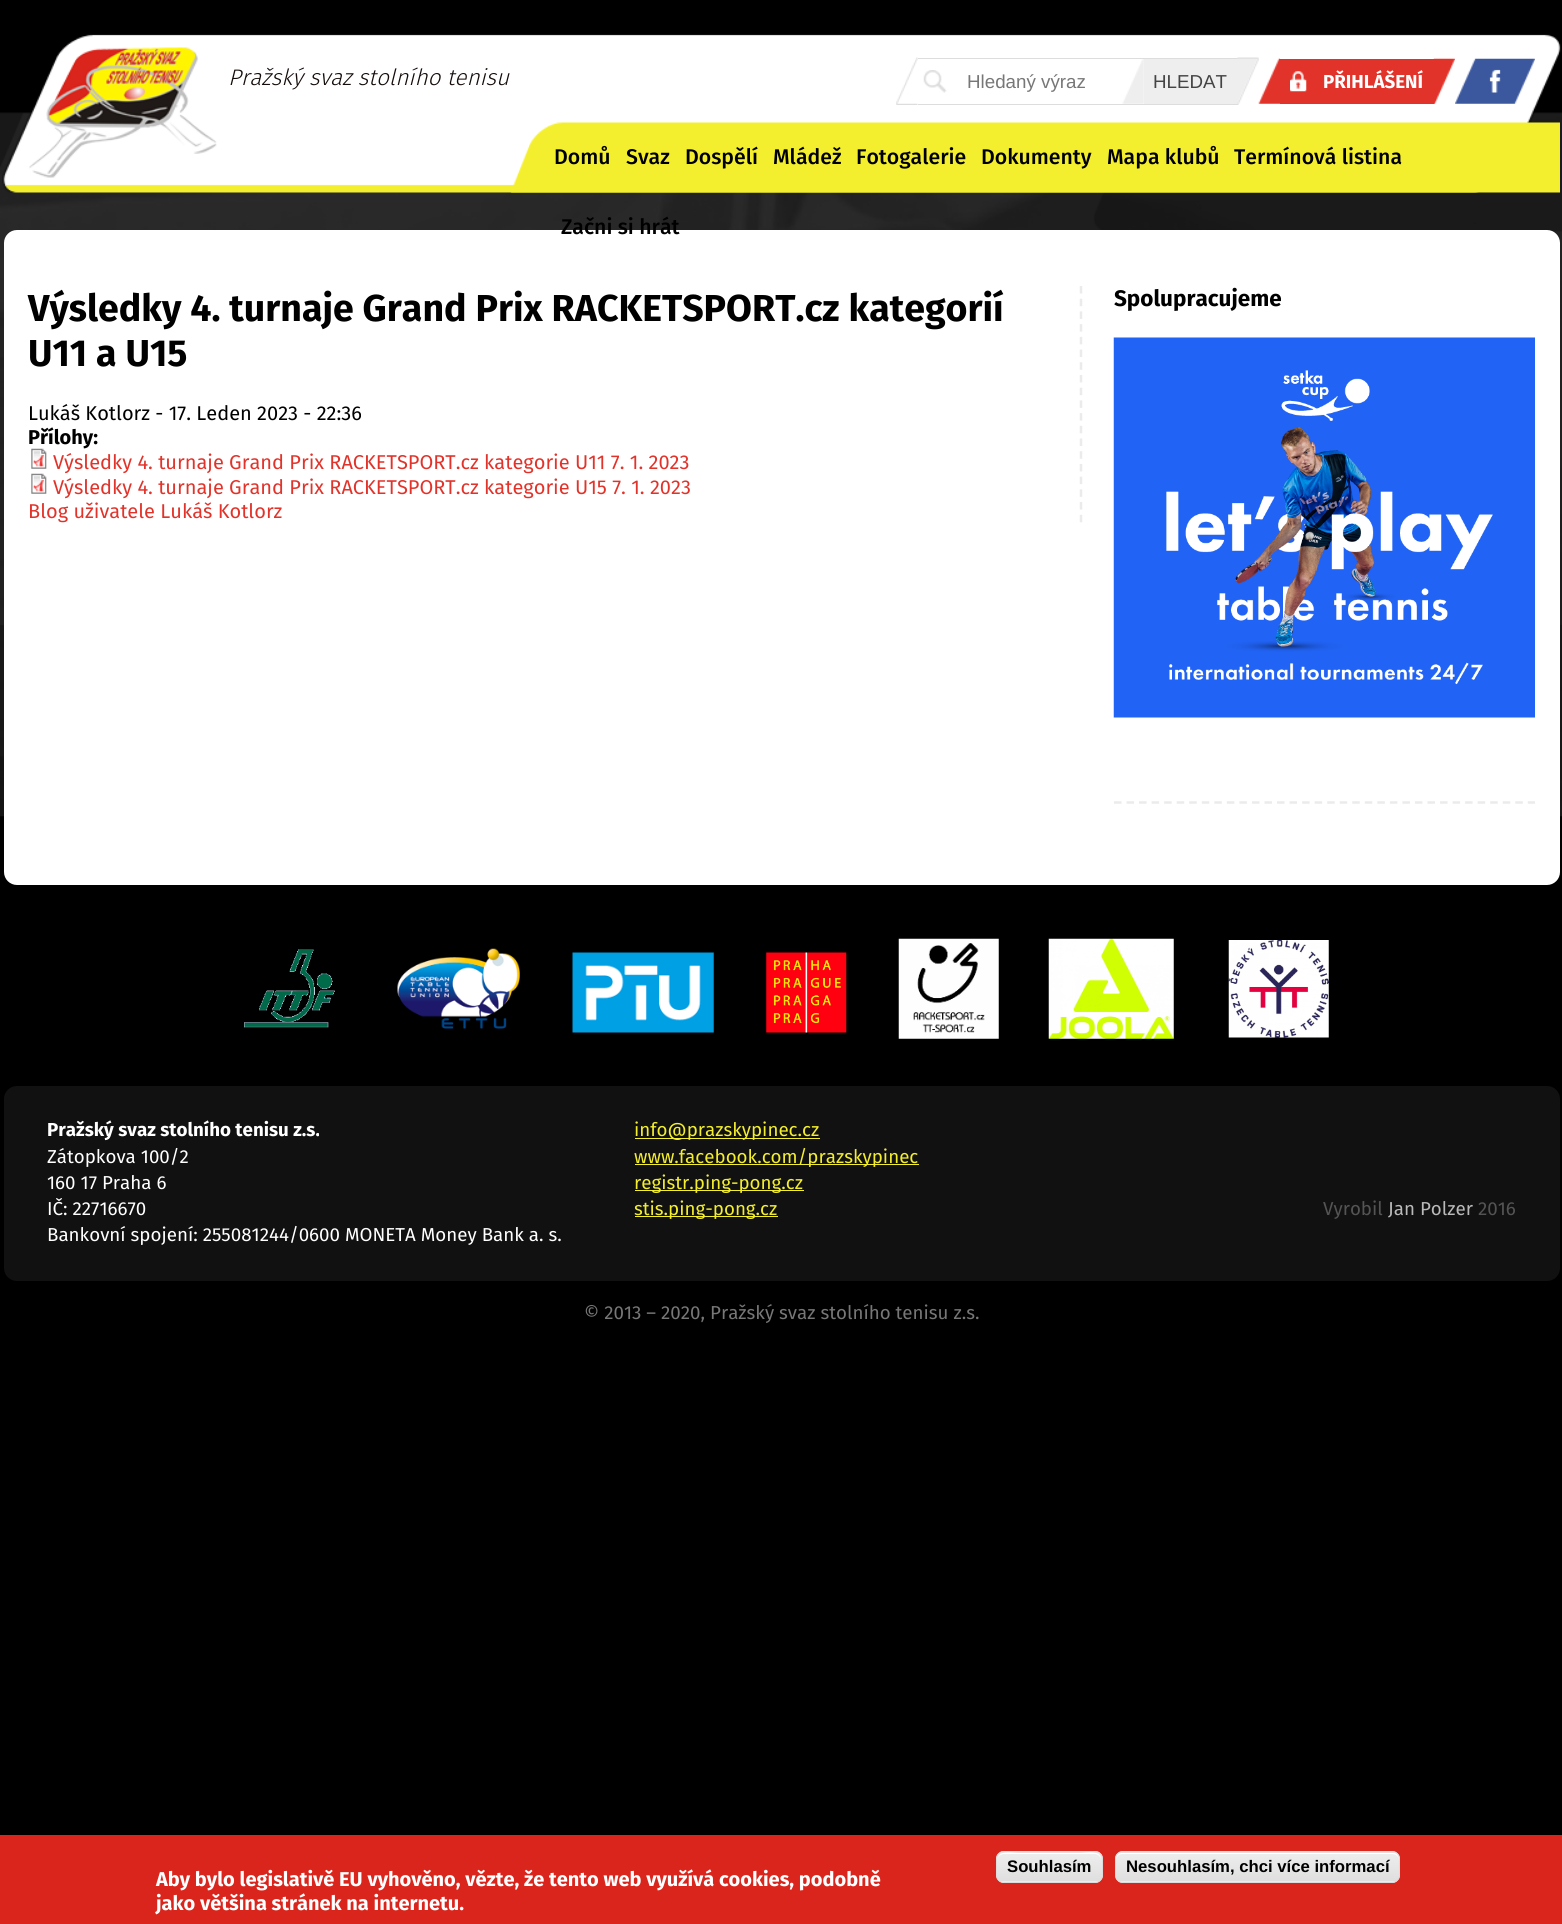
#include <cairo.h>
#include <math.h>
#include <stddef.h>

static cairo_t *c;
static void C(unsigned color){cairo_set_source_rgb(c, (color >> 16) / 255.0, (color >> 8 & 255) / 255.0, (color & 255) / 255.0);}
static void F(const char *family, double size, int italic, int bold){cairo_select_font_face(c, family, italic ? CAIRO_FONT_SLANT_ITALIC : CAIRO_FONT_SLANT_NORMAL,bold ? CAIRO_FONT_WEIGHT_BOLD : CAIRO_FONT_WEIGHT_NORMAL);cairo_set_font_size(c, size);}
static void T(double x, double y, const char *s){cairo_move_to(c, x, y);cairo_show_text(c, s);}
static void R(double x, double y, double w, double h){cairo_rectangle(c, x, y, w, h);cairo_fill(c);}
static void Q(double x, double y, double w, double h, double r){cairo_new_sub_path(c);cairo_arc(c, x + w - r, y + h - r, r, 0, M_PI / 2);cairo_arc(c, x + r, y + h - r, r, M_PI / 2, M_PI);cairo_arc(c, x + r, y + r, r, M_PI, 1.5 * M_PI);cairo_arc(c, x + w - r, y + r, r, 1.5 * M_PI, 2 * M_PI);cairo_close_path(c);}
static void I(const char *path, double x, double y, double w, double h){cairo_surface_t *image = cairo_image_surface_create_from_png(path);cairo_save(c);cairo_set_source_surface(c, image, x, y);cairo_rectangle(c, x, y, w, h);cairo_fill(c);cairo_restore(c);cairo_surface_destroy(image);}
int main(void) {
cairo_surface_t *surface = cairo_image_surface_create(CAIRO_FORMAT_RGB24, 1562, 1924);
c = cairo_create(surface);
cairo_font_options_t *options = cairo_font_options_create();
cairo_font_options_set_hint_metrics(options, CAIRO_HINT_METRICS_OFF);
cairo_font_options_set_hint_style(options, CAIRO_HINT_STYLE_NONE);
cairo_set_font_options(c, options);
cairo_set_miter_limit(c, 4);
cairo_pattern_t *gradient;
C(0x000000);
cairo_paint(c);
I("1.png",0,112,1562,705);
I("2.png",2,34,1559,159);
I("3.png",29,47,188,131);
F("Fira Sans Light",22.5,1,0);
C(0x140c0a);
T(228,85,"Pražský svaz stolního tenisu");
I("4.png",896,57,22,48);
I("5.png",923,70,24,23);
C(0xdddddd);
R(918,58,320,1);
R(918,104,320,1);
F("Liberation Sans",18.75,0,0);
C(0x777777);
T(967,88,"Hledaný výraz");
I("6.png",1122,59,22,45);
C(0xeeeeee);
R(1144,59,94,45);
C(0x444444);
T(1153,88,"HLEDAT");
I("7.png",1237,57,22,48);
C(0xe1332a);
R(1280,59,154,45);
I("8.png",1290,71,17,21);
I("9.png",1258,58,22,46);
F("Fira Sans",18.75,0,1);
C(0xffffff);
T(1323,88,"PŘIHLÁŠENÍ");
I("10.png",1433,58,22,46);
I("11.png",1455,58,80,46);
I("12.png",510,122,1050,71);
F("Fira Sans Medium",21.25,0,0);
C(0x000000);
T(554,164,"Domů");
T(626,164,"Svaz");
T(685,164,"Dospělí");
T(773,164,"Mládež");
T(856,164,"Fotogalerie");
T(981,164,"Dokumenty");
T(1107,164,"Mapa klubů");
T(1234,164,"Termínová listina");
C(0xffffff);
Q(4,230,1556,655,13);
cairo_fill(c);
C(0x000000);
T(561,234,"Začni si hrát");
cairo_new_path(c);
cairo_move_to(c,1081,286);
cairo_line_to(c,1081,522.5);
C(0xebebeb);
cairo_set_line_width(c,2.5);
cairo_set_dash(c,(double[]){7.5,5.21},2,0);
cairo_stroke(c);
F("Fira Sans",37.5,0,1);
C(0x000000);
T(28,321,"Výsledky 4. turnaje Grand Prix RACKETSPORT.cz kategorií");
T(28,366,"U11 a U15");
F("Fira Sans",20,0,0);
T(28,420,"Lukáš Kotlorz - 17. Leden 2023 - 22:36");
F("Fira Sans",20,0,1);
T(28,444,"Přílohy:");
I("13.png",31,448,16,21);
F("Fira Sans",20,0,0);
C(0xe1332a);
T(53,469,"Výsledky 4. turnaje Grand Prix RACKETSPORT.cz kategorie U11 7. 1. 2023");
I("13.png",31,473,16,21);
T(53,494,"Výsledky 4. turnaje Grand Prix RACKETSPORT.cz kategorie U15 7. 1. 2023");
T(28,518,"Blog uživatele Lukáš Kotlorz");
cairo_new_path(c);
cairo_move_to(c,1114,802.5);
cairo_line_to(c,1535,802.5);
C(0xebebeb);
cairo_set_dash(c,(double[]){7.5,5.04},2,0);
cairo_stroke(c);
F("Fira Sans",22.5,0,1);
C(0x000000);
T(1114,306,"Spolupracujeme");
I("14.png",1113,337,422,381);
I("15.png",244,949,91,79);
I("16.png",397,948,123,81);
I("17.png",572,952,142,81);
I("18.png",766,952,81,81);
I("19.png",898,938,101,101);
I("20.png",1048,938,126,101);
I("21.png",1228,940,101,98);
C(0x111111);
Q(4,1086,1556,195,13);
cairo_fill(c);
F("Fira Sans",18.75,0,1);
C(0xffffff);
T(47,1136,"Pražský svaz stolního tenisu z.s.");
F("Fira Sans",18.75,0,0);
T(47,1163,"Zátopkova 100/2");
T(47,1189,"160 17 Praha 6");
T(47,1215,"IČ: 22716670");
T(47,1241,"Bankovní spojení: 255081244/0600 MONETA Money Bank a. s.");
C(0xf4ef2e);
R(635,1138,185,1);
T(634,1136,"info@prazskypinec.cz");
R(635,1164,284,1);
T(634,1163,"www.facebook.com/prazskypinec");
R(635,1190,169,1);
T(634,1189,"registr.ping-pong.cz");
R(635,1216,143,1);
T(634,1215,"stis.ping-pong.cz");
C(0x545454);
T(1323,1215,"Vyrobil");
C(0xbababa);
T(1388,1215,"Jan Polzer");
C(0x545454);
T(1478,1215,"2016");
C(0x777777);
T(584,1319,"© 2013 – 2020, Pražský svaz stolního tenisu z.s.");
C(0xda251c);
R(0,1835,1562,89);
cairo_save(c);
Q(996,1851,107,32,8);
cairo_clip(c);
gradient = cairo_pattern_create_linear(1049,1824,1049,1853);
cairo_pattern_add_color_stop_rgba(gradient,.05,0.929,0.929,0.929,1);
cairo_pattern_add_color_stop_rgba(gradient,1,0.875,0.875,0.875,1);
cairo_set_source(c,gradient);
cairo_pattern_destroy(gradient);
R(996,1851,107,2);
gradient = cairo_pattern_create_linear(1049,1853,1049,1881);
cairo_pattern_add_color_stop_rgba(gradient,.05,0.929,0.929,0.929,1);
cairo_pattern_add_color_stop_rgba(gradient,1,0.875,0.875,0.875,1);
cairo_set_source(c,gradient);
cairo_pattern_destroy(gradient);
R(996,1853,107,28);
gradient = cairo_pattern_create_linear(1049,1881,1049,1910);
cairo_pattern_add_color_stop_rgba(gradient,.05,0.929,0.929,0.929,1);
cairo_pattern_add_color_stop_rgba(gradient,1,0.875,0.875,0.875,1);
cairo_set_source(c,gradient);
cairo_pattern_destroy(gradient);
R(996,1881,107,2);
cairo_restore(c);
C(0xffffff);
cairo_new_path(c);
cairo_move_to(c,1004,1854);
cairo_line_to(c,1095,1854);
cairo_curve_to(c,1098,1854,1101,1857,1101,1860);
cairo_curve_to(c,1101,1849,1086,1853,1080,1853);
cairo_line_to(c,1019,1853);
cairo_curve_to(c,1013,1853,998,1849,998,1860);
cairo_curve_to(c,998,1857,1000,1854,1004,1854);
cairo_close_path(c);
cairo_fill(c);
Q(996.5,1851.5,106,31,7.5);
C(0xdcdcdc);
cairo_set_line_width(c,1);
cairo_set_dash(c,NULL,0,0);
cairo_stroke(c);
F("Liberation Sans",16.7,0,1);
C(0x000000);
T(1007,1872,"Souhlasím");
cairo_save(c);
Q(1115,1851,285,32,8);
cairo_clip(c);
gradient = cairo_pattern_create_linear(1258,1824,1258,1853);
cairo_pattern_add_color_stop_rgba(gradient,.05,0.929,0.929,0.929,1);
cairo_pattern_add_color_stop_rgba(gradient,1,0.875,0.875,0.875,1);
cairo_set_source(c,gradient);
cairo_pattern_destroy(gradient);
R(1115,1851,285,2);
gradient = cairo_pattern_create_linear(1258,1853,1258,1881);
cairo_pattern_add_color_stop_rgba(gradient,.05,0.929,0.929,0.929,1);
cairo_pattern_add_color_stop_rgba(gradient,1,0.875,0.875,0.875,1);
cairo_set_source(c,gradient);
cairo_pattern_destroy(gradient);
R(1115,1853,285,28);
gradient = cairo_pattern_create_linear(1258,1881,1258,1910);
cairo_pattern_add_color_stop_rgba(gradient,.05,0.929,0.929,0.929,1);
cairo_pattern_add_color_stop_rgba(gradient,1,0.875,0.875,0.875,1);
cairo_set_source(c,gradient);
cairo_pattern_destroy(gradient);
R(1115,1881,285,2);
cairo_restore(c);
C(0xffffff);
cairo_new_path(c);
cairo_move_to(c,1122,1854);
cairo_line_to(c,1392,1854);
cairo_curve_to(c,1396,1854,1399,1857,1399,1860);
cairo_line_to(c,1399,1859);
cairo_curve_to(c,1399,1856,1396,1853,1393,1853);
cairo_line_to(c,1122,1853);
cairo_curve_to(c,1119,1853,1116,1856,1116,1859);
cairo_line_to(c,1116,1860);
cairo_curve_to(c,1116,1857,1119,1854,1122,1854);
cairo_close_path(c);
cairo_fill(c);
Q(1115.5,1851.5,284,31,7.5);
C(0xdcdcdc);
cairo_stroke(c);
C(0x000000);
T(1126,1872,"Nesouhlasím, chci více informací");
F("Fira Sans",20,0,1);
C(0xffffff);
T(156,1886,"Aby bylo legislativě EU vyhověno, vězte, že tento web využívá cookies, podobně");
T(156,1910,"jako většina stránek na internetu.");
cairo_surface_write_to_png(surface, "o.png");
cairo_font_options_destroy(options);
cairo_destroy(c);
cairo_surface_destroy(surface);
return 0;
}
